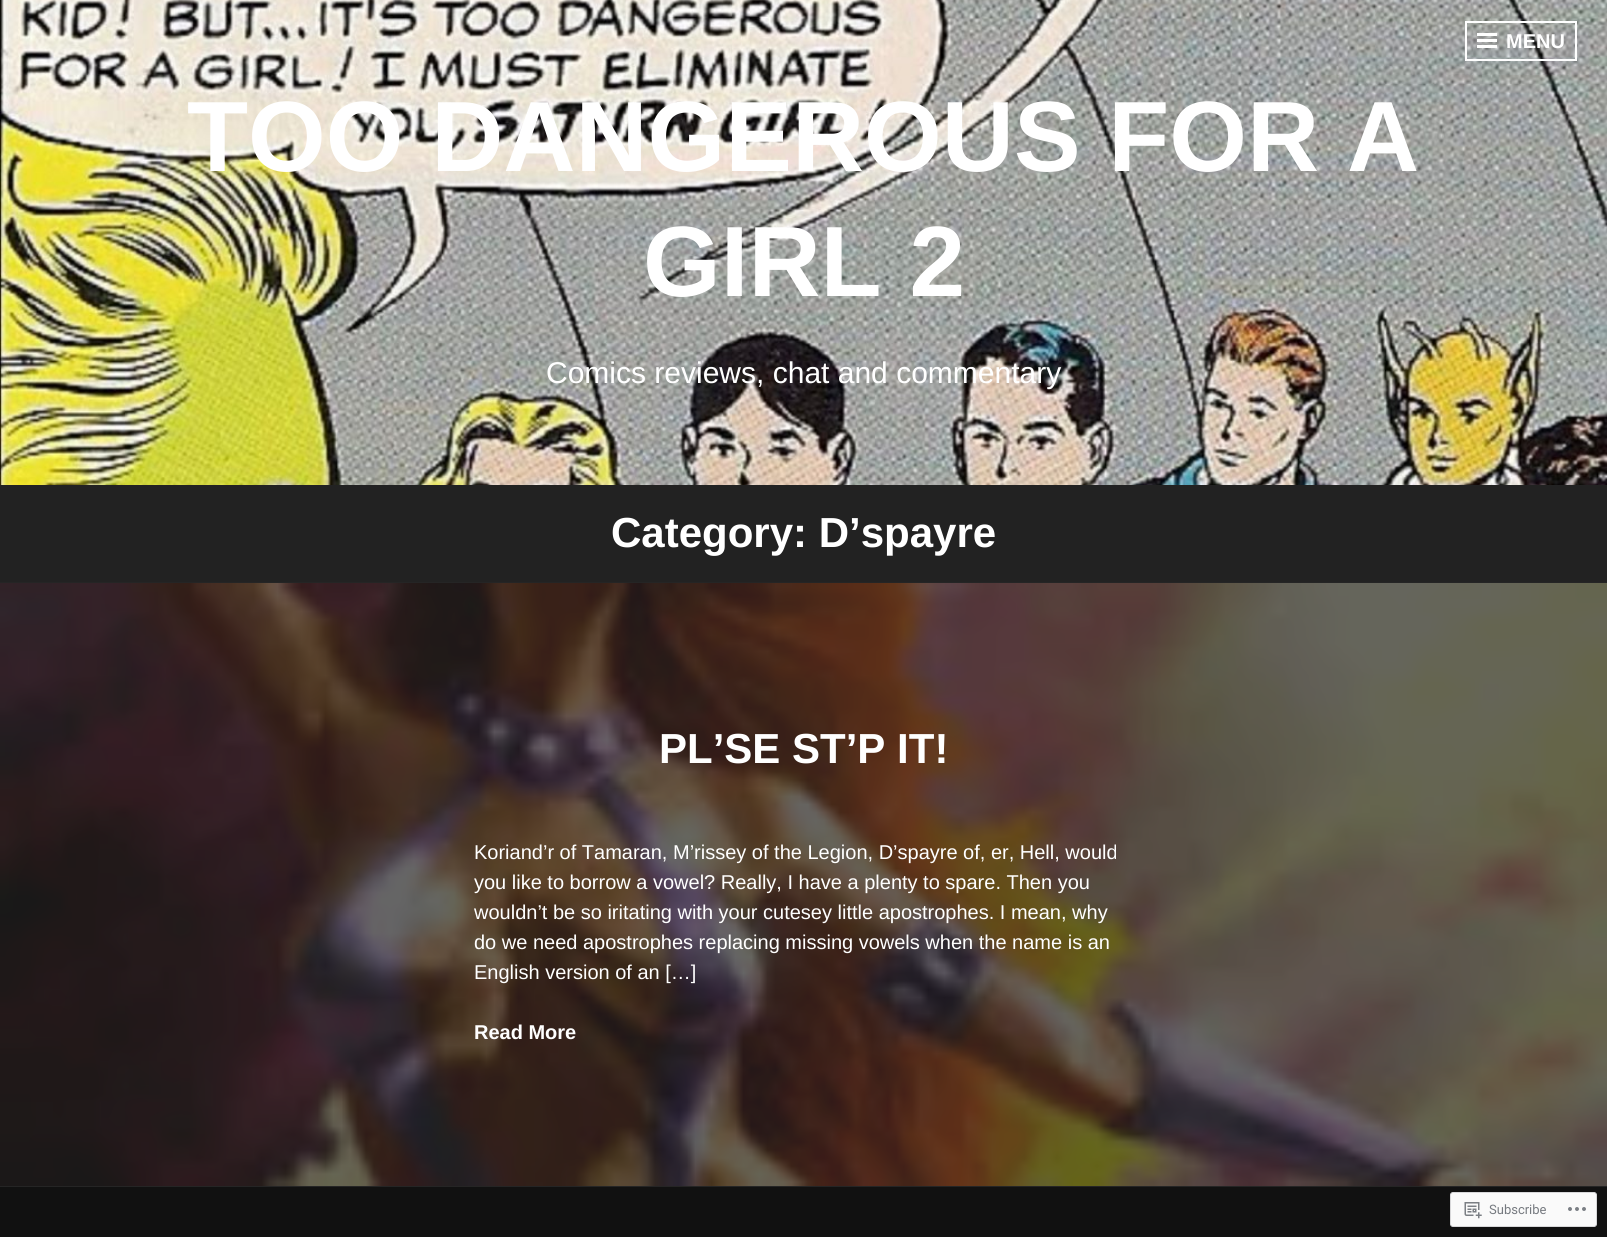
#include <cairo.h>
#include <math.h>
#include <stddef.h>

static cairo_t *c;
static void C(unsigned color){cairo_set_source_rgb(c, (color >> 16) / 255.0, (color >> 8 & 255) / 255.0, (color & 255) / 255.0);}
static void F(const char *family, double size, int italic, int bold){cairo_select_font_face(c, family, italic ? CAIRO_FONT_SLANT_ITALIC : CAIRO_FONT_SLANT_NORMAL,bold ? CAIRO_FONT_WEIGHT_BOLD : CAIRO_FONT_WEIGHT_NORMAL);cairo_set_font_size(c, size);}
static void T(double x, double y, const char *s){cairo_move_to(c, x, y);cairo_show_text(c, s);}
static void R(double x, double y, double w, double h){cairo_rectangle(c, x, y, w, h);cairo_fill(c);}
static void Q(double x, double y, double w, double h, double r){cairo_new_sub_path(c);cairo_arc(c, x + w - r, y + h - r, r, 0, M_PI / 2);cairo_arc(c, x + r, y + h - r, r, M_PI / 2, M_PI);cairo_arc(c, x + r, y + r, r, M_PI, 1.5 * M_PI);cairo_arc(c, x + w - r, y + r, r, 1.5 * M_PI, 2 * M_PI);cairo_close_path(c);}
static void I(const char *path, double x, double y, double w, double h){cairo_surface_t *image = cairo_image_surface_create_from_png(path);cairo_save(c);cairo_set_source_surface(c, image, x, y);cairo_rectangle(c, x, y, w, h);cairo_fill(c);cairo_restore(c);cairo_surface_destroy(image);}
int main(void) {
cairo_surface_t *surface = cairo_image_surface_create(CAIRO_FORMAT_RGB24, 1607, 1237);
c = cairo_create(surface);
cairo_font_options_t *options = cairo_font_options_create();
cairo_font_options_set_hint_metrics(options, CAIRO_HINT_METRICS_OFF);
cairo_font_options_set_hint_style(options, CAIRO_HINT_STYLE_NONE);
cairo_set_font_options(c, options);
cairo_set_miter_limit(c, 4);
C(0xffffff);
cairo_paint(c);
I("1.png",0,0,1607,485);
cairo_rectangle(c,1466,22,110,38);
C(0xffffff);
cairo_stroke(c);
R(1477,39,20,3);
R(1477,33,20,3);
R(1477,45,20,3);
F("Arimo",20,0,1);
T(1506,48,"MENU");
F("Arimo",99.9,0,1);
T(187,171,"TOO DANGEROUS FOR A");
T(643,296,"GIRL 2");
F("Arimo",30,0,0);
T(546,383,"Comics reviews, chat and commentary");
C(0x222222);
R(0,485,1607,97);
C(0x252525);
R(0,582,1607,1);
F("Arimo",42,0,1);
C(0xffffff);
T(611,547,"Category: D’spayre");
C(0x222222);
R(0,583,1607,603);
C(0x252525);
R(0,1186,1607,1);
I("2.png",0,583,1607,603);
C(0xffffff);
T(659,763,"PL’SE ST’P IT!");
F("Arimo",20,0,0);
T(474,859,"Koriand’r of Tamaran, M’rissey of the Legion, D’spayre of, er, Hell, would");
T(474,889,"you like to borrow a vowel? Really, I have a plenty to spare. Then you");
T(474,919,"wouldn’t be so iritating with your cutesey little apostrophes. I mean, why");
T(474,949,"do we need apostrophes replacing missing vowels when the name is an");
T(474,979,"English version of an […]");
F("Arimo",20,0,1);
T(474,1039,"Read More");
C(0x111111);
R(0,1187,1607,50);
C(0xfafafa);
Q(1450.5,1192.5,146,34,2.5);
cairo_fill_preserve(c);
C(0xd8d8da);
cairo_set_line_width(c,1);
cairo_stroke(c);
I("3.png",1464,1202,18,17);
F("Roboto",13,0,0);
C(0x767a80);
T(1489,1214,"Subscribe");
I("4.png",1568,1207,18,4);
cairo_surface_write_to_png(surface, "o.png");
cairo_font_options_destroy(options);
cairo_destroy(c);
cairo_surface_destroy(surface);
return 0;
}
